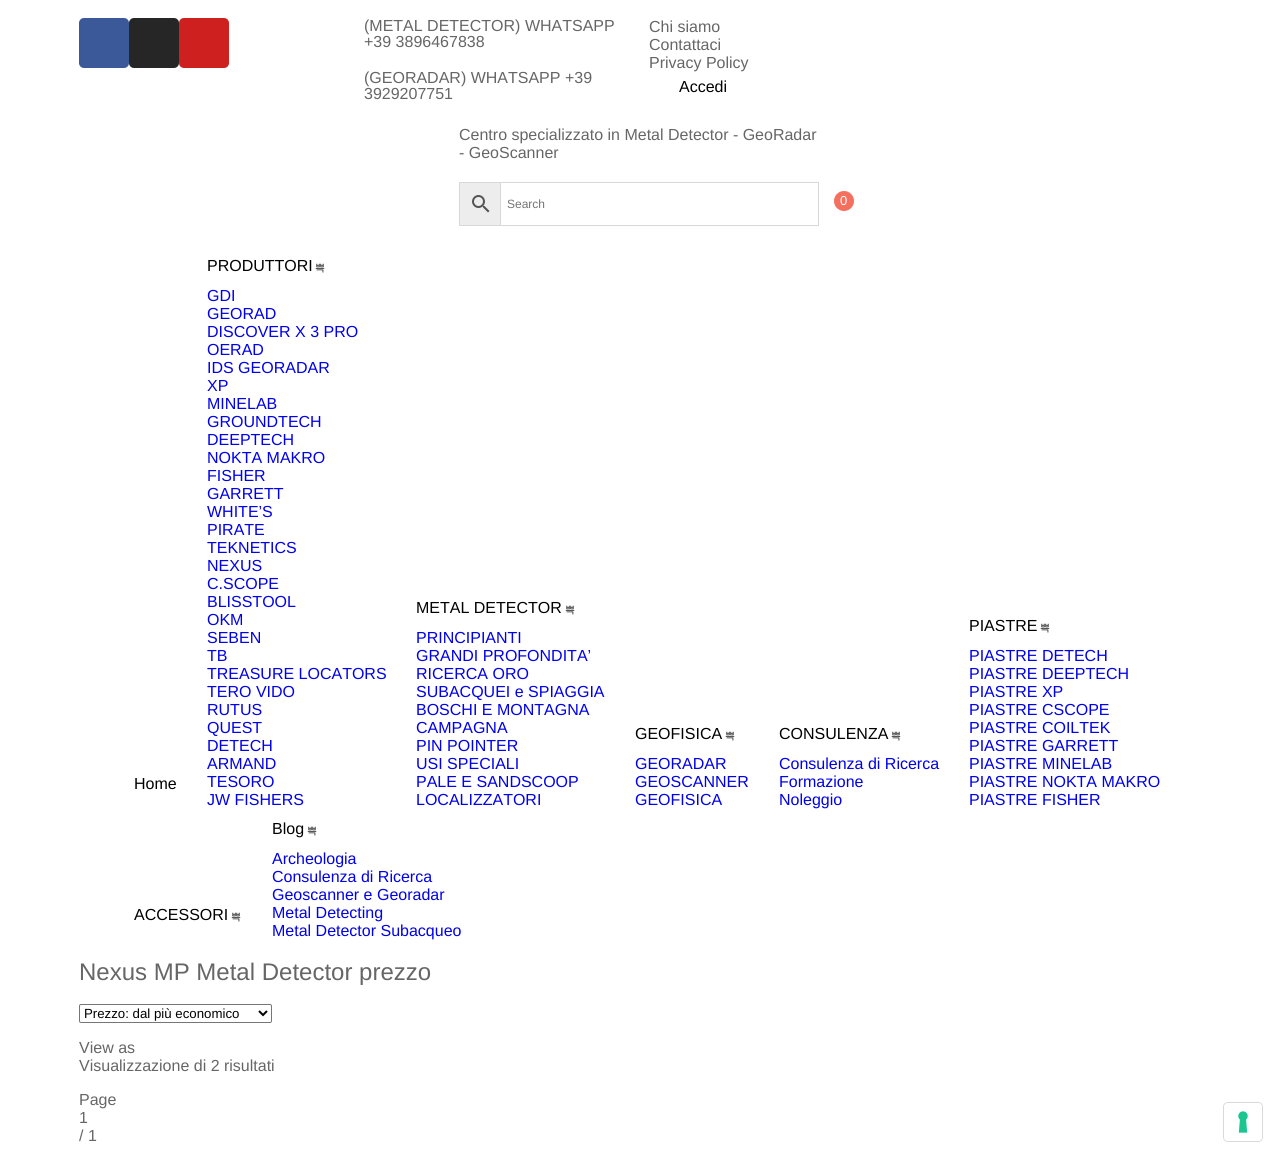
#include <cairo.h>
#include <math.h>
#include <stddef.h>

static cairo_t *c;
static void C(unsigned color){cairo_set_source_rgb(c, (color >> 16) / 255.0, (color >> 8 & 255) / 255.0, (color & 255) / 255.0);}
static void F(const char *family, double size, int italic, int bold){cairo_select_font_face(c, family, italic ? CAIRO_FONT_SLANT_ITALIC : CAIRO_FONT_SLANT_NORMAL,bold ? CAIRO_FONT_WEIGHT_BOLD : CAIRO_FONT_WEIGHT_NORMAL);cairo_set_font_size(c, size);}
static void T(double x, double y, const char *s){cairo_move_to(c, x, y);cairo_show_text(c, s);}
static void Q(double x, double y, double w, double h, double r){cairo_new_sub_path(c);cairo_arc(c, x + w - r, y + h - r, r, 0, M_PI / 2);cairo_arc(c, x + r, y + h - r, r, M_PI / 2, M_PI);cairo_arc(c, x + r, y + r, r, M_PI, 1.5 * M_PI);cairo_arc(c, x + w - r, y + r, r, 1.5 * M_PI, 2 * M_PI);cairo_close_path(c);}
static void I(const char *path, double x, double y, double w, double h){cairo_surface_t *image = cairo_image_surface_create_from_png(path);cairo_save(c);cairo_set_source_surface(c, image, x, y);cairo_rectangle(c, x, y, w, h);cairo_fill(c);cairo_restore(c);cairo_surface_destroy(image);}
int main(void) {
cairo_surface_t *surface = cairo_image_surface_create(CAIRO_FORMAT_RGB24, 1278, 1157);
c = cairo_create(surface);
cairo_font_options_t *options = cairo_font_options_create();
cairo_font_options_set_hint_metrics(options, CAIRO_HINT_METRICS_OFF);
cairo_font_options_set_hint_style(options, CAIRO_HINT_STYLE_NONE);
cairo_set_font_options(c, options);
cairo_set_miter_limit(c, 4);
C(0xffffff);
cairo_paint(c);
C(0x3b5998);
Q(79,18,50,50,5);
cairo_fill(c);
C(0x262626);
Q(129,18,50,50,5);
cairo_fill(c);
C(0xcd201f);
Q(179,18,50,50,5);
cairo_fill(c);
F("Liberation Sans",16,0,0);
C(0x666666);
T(364,31,"(METAL DETECTOR) WHATSAPP");
T(364,47,"+39 3896467838");
T(364,83,"(GEORADAR) WHATSAPP +39");
T(364,99,"3929207751");
T(649,32,"Chi siamo");
T(649,50,"Contattaci");
T(649,68,"Privacy Policy");
C(0x000000);
T(679,92,"Accedi");
C(0x666666);
T(459,140,"Centro specializzato in Metal Detector - GeoRadar");
T(459,158,"- GeoScanner");
C(0xededed);
cairo_rectangle(c,459.5,182.5,41,43);
cairo_fill_preserve(c);
C(0xd8d8d8);
cairo_set_line_width(c,1);
cairo_stroke(c);
I("1.png",472,195,18,18);
cairo_rectangle(c,500.5,182.5,318,43);
cairo_stroke(c);
F("Liberation Sans",12,0,0);
C(0x757575);
T(507,208,"Search");
C(0xf56f5e);
cairo_new_path(c);
cairo_arc(c,844,201,10,0,2 * M_PI);
cairo_fill(c);
F("Liberation Sans",13,0,0);
C(0xffffff);
T(840,205,"0");
F("Liberation Sans",16,0,0);
C(0x000000);
T(134,789,"Home");
T(207,271,"PRODUTTORI");
F("WenQuanYi Zen Hei Medium",10,0,0);
T(315,271,"쁙");
F("Liberation Sans",16,0,0);
C(0x0000ee);
T(207,301,"GDI");
T(207,319,"GEORAD");
T(207,337,"DISCOVER X 3 PRO");
T(207,355,"OERAD");
T(207,373,"IDS GEORADAR");
T(207,391,"XP");
T(207,409,"MINELAB");
T(207,427,"GROUNDTECH");
T(207,445,"DEEPTECH");
T(207,463,"NOKTA MAKRO");
T(207,481,"FISHER");
T(207,499,"GARRETT");
T(207,517,"WHITE’S");
T(207,535,"PIRATE");
T(207,553,"TEKNETICS");
T(207,571,"NEXUS");
T(207,589,"C.SCOPE");
T(207,607,"BLISSTOOL");
T(207,625,"OKM");
T(207,643,"SEBEN");
T(207,661,"TB");
T(207,679,"TREASURE LOCATORS");
T(207,697,"TERO VIDO");
T(207,715,"RUTUS");
T(207,733,"QUEST");
T(207,751,"DETECH");
T(207,769,"ARMAND");
T(207,787,"TESORO");
T(207,805,"JW FISHERS");
C(0x000000);
T(416,613,"METAL DETECTOR");
F("WenQuanYi Zen Hei Medium",10,0,0);
T(565,613,"쁙");
F("Liberation Sans",16,0,0);
C(0x0000ee);
T(416,643,"PRINCIPIANTI");
T(416,661,"GRANDI PROFONDITA’");
T(416,679,"RICERCA ORO");
T(416,697,"SUBACQUEI e SPIAGGIA");
T(416,715,"BOSCHI E MONTAGNA");
T(416,733,"CAMPAGNA");
T(416,751,"PIN POINTER");
T(416,769,"USI SPECIALI");
T(416,787,"PALE E SANDSCOOP");
T(416,805,"LOCALIZZATORI");
C(0x000000);
T(635,739,"GEOFISICA");
F("WenQuanYi Zen Hei Medium",10,0,0);
T(725,739,"쁙");
F("Liberation Sans",16,0,0);
C(0x0000ee);
T(635,769,"GEORADAR");
T(635,787,"GEOSCANNER");
T(635,805,"GEOFISICA");
C(0x000000);
T(779,739,"CONSULENZA");
F("WenQuanYi Zen Hei Medium",10,0,0);
T(891,739,"쁙");
F("Liberation Sans",16,0,0);
C(0x0000ee);
T(779,769,"Consulenza di Ricerca");
T(779,787,"Formazione");
T(779,805,"Noleggio");
C(0x000000);
T(969,631,"PIASTRE");
F("WenQuanYi Zen Hei Medium",10,0,0);
T(1040,631,"쁙");
F("Liberation Sans",16,0,0);
C(0x0000ee);
T(969,661,"PIASTRE DETECH");
T(969,679,"PIASTRE DEEPTECH");
T(969,697,"PIASTRE XP");
T(969,715,"PIASTRE CSCOPE");
T(969,733,"PIASTRE COILTEK");
T(969,751,"PIASTRE GARRETT");
T(969,769,"PIASTRE MINELAB");
T(969,787,"PIASTRE NOKTA MAKRO");
T(969,805,"PIASTRE FISHER");
C(0x000000);
T(134,920,"ACCESSORI");
F("WenQuanYi Zen Hei Medium",10,0,0);
T(231,920,"쁙");
F("Liberation Sans",16,0,0);
T(272,834,"Blog");
F("WenQuanYi Zen Hei Medium",10,0,0);
T(307,834,"쁙");
F("Liberation Sans",16,0,0);
C(0x0000ee);
T(272,864,"Archeologia");
T(272,882,"Consulenza di Ricerca");
T(272,900,"Geoscanner e Georadar");
T(272,918,"Metal Detecting");
T(272,936,"Metal Detector Subacqueo");
F("Liberation Sans",24,0,0);
C(0x666666);
T(79,980,"Nexus MP Metal Detector prezzo");
Q(79.5,1004.5,192,18,1.5);
C(0x767676);
cairo_stroke(c);
cairo_new_path(c);
cairo_move_to(c,259,1011);
cairo_line_to(c,263,1015);
cairo_line_to(c,267,1011);
C(0x000000);
cairo_set_line_width(c,2);
cairo_stroke(c);
F("Liberation Sans",13.25,0,0);
T(84,1018,"Prezzo: dal più economico");
F("Liberation Sans",16,0,0);
C(0x666666);
T(79,1053,"View as");
T(79,1071,"Visualizzazione di 2 risultati");
T(79,1105,"Page");
T(79,1123,"1");
T(79,1141,"/ 1");
Q(1223.5,1102.5,39,39,4.5);
C(0xd9d9d9);
cairo_set_line_width(c,1);
cairo_stroke(c);
C(0xffffff);
Q(1224,1103,38,38,4);
cairo_fill(c);
I("2.png",1238,1111,10,22);
cairo_surface_write_to_png(surface, "o.png");
cairo_font_options_destroy(options);
cairo_destroy(c);
cairo_surface_destroy(surface);
return 0;
}
